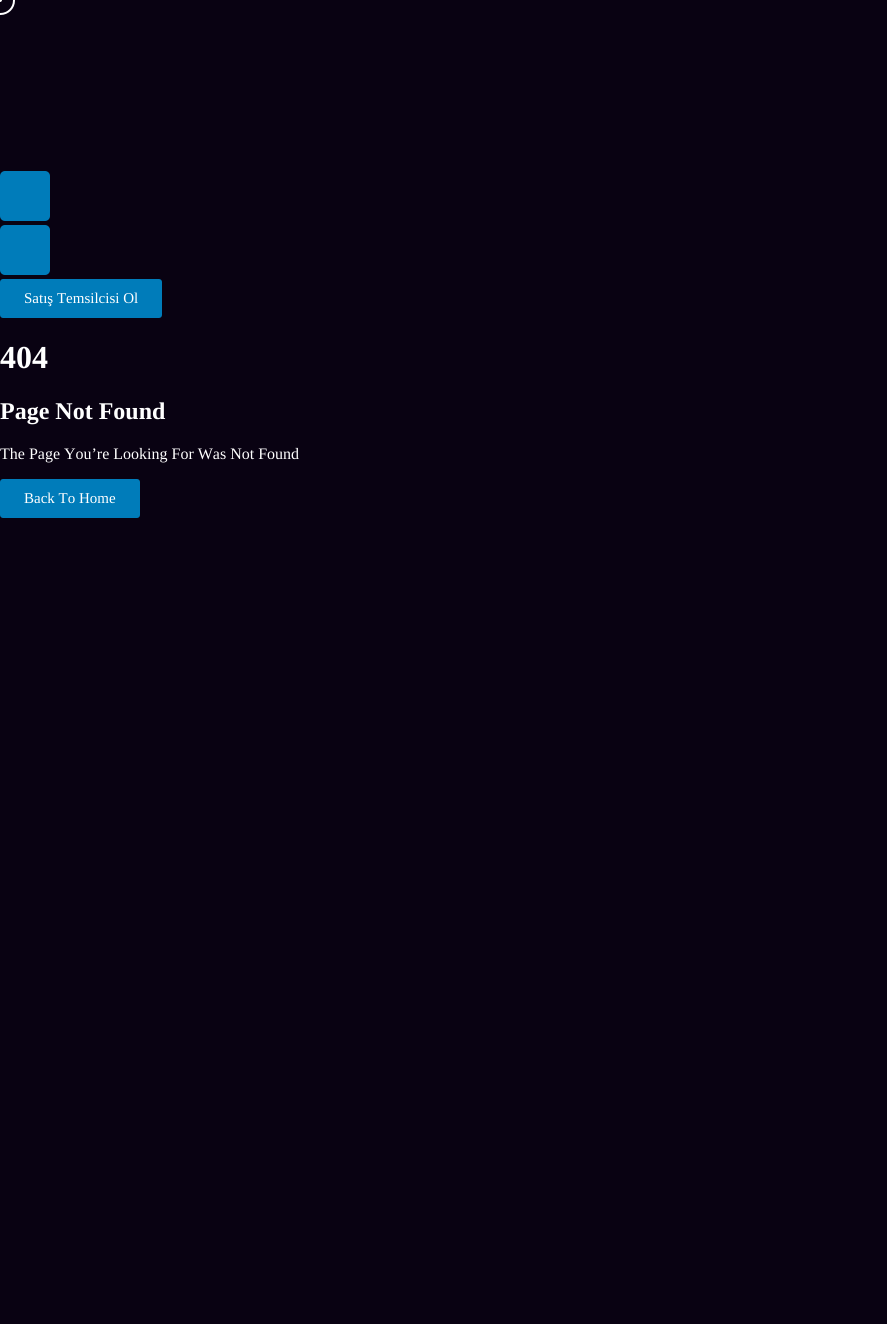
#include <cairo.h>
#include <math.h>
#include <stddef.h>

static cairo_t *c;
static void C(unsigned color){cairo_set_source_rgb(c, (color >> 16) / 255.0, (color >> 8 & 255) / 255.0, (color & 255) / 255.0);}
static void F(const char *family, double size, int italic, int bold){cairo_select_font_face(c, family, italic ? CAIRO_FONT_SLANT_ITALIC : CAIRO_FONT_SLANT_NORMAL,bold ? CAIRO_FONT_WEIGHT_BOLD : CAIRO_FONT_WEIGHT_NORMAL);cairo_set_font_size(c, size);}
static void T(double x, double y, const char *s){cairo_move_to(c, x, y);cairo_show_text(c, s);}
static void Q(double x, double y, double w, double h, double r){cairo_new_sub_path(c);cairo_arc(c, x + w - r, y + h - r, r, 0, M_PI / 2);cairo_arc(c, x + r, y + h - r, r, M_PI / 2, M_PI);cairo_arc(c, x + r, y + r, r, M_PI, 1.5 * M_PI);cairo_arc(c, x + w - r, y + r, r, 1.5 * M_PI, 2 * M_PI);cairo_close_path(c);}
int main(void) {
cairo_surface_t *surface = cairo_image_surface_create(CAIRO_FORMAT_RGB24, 887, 1324);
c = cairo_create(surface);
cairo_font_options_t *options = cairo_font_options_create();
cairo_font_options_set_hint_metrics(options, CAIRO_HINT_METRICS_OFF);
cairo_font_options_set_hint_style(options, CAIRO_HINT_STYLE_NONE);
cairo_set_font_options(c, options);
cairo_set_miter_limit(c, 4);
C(0x090212);
cairo_paint(c);
cairo_arc(c,.5,.5,13.5,0,2 * M_PI);
C(0xffffff);
cairo_stroke(c);
cairo_arc(c,0,0,2,0,2 * M_PI);
cairo_fill(c);
C(0x007cba);
Q(0,171,50,50,5);
cairo_fill(c);
Q(0,225,50,50,5);
cairo_fill(c);
Q(0,279,162,39,3);
cairo_fill(c);
F("Liberation Serif",15,0,0);
C(0xffffff);
T(24,303,"Satış Temsilcisi Ol");
F("Liberation Serif",32,0,1);
T(0,368,"404");
F("Liberation Serif",24,0,1);
T(0,419,"Page Not Found");
F("Liberation Serif",16,0,0);
T(0,459,"The Page You’re Looking For Was Not Found");
C(0x007cba);
Q(0,479,140,39,3);
cairo_fill(c);
F("Liberation Serif",15,0,0);
C(0xffffff);
T(24,503,"Back To Home");
cairo_surface_write_to_png(surface, "o.png");
cairo_font_options_destroy(options);
cairo_destroy(c);
cairo_surface_destroy(surface);
return 0;
}
